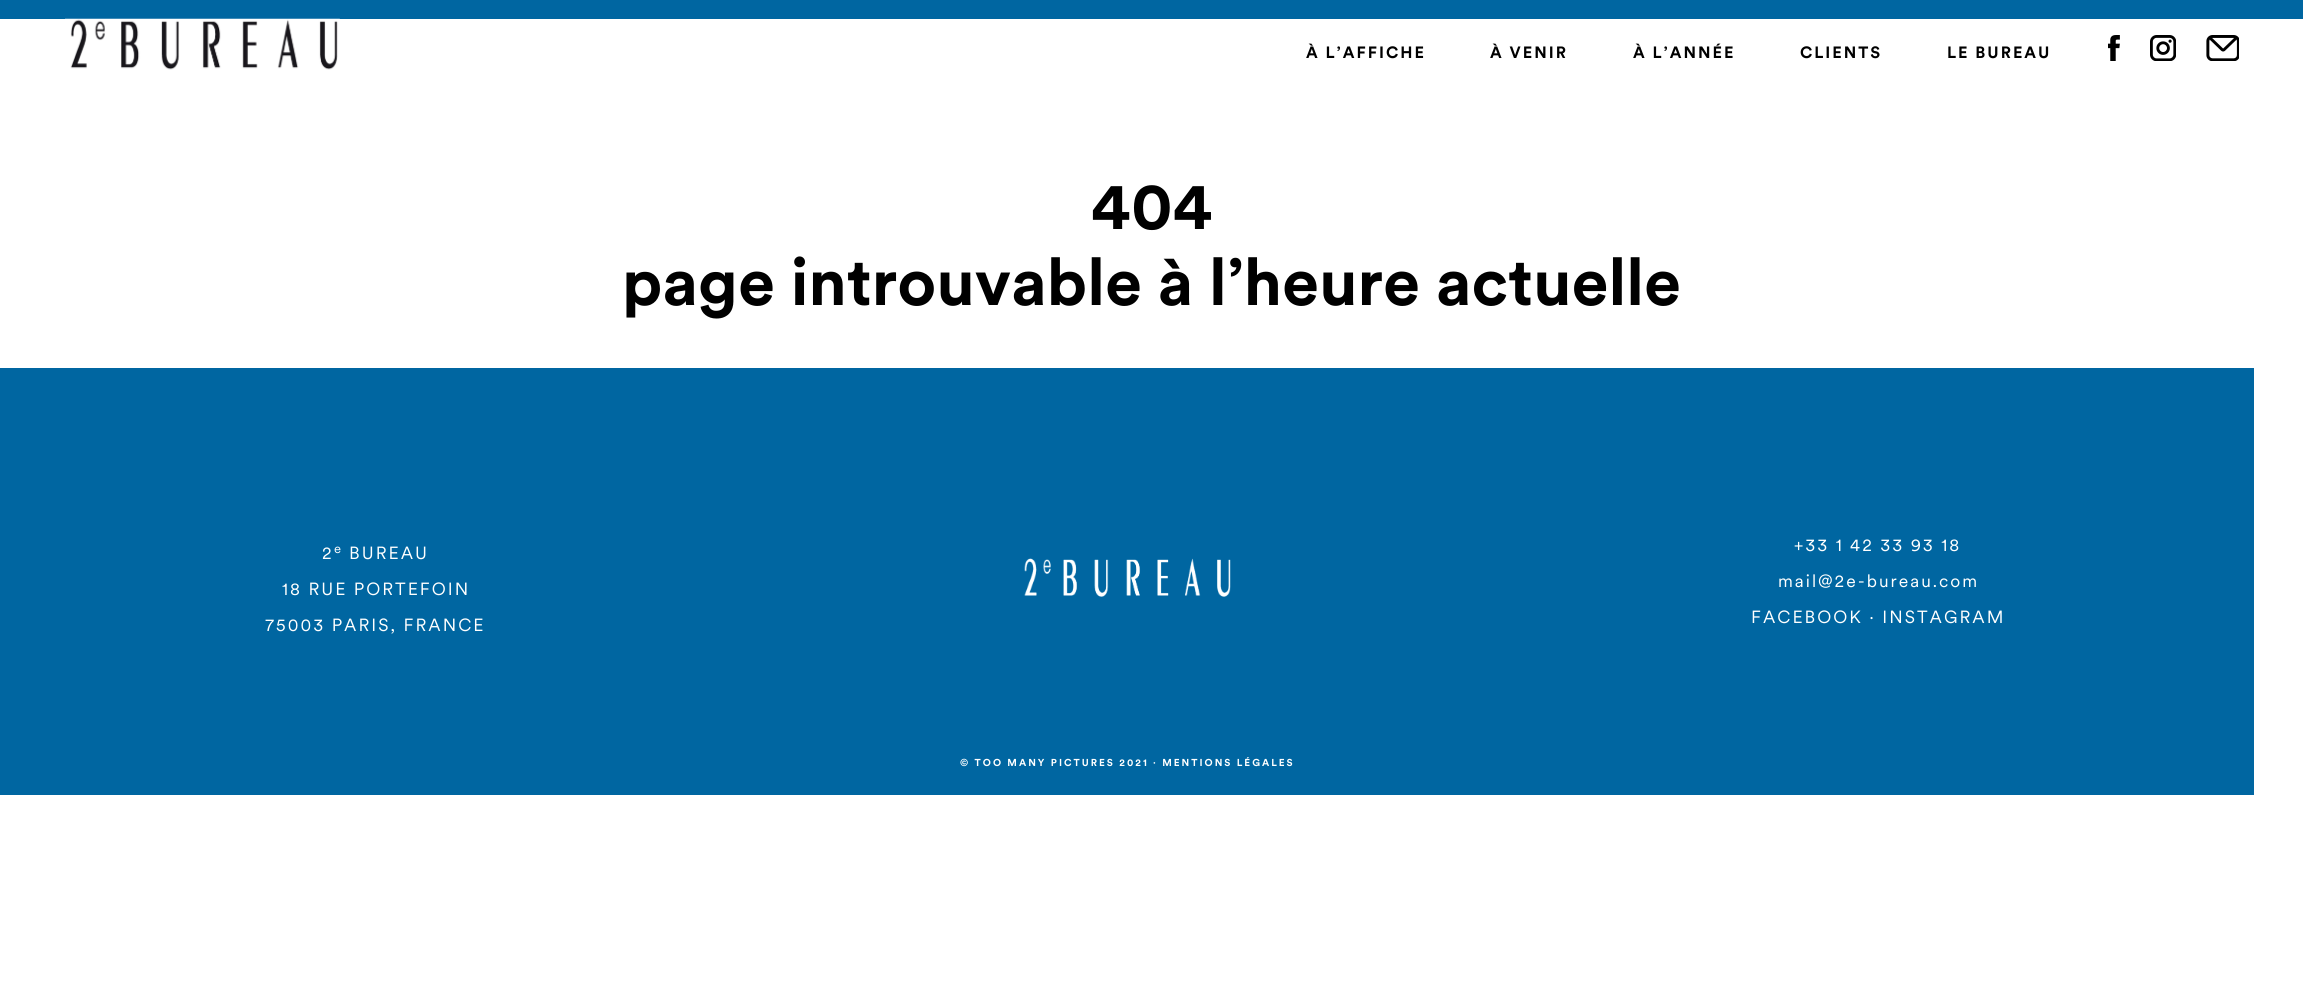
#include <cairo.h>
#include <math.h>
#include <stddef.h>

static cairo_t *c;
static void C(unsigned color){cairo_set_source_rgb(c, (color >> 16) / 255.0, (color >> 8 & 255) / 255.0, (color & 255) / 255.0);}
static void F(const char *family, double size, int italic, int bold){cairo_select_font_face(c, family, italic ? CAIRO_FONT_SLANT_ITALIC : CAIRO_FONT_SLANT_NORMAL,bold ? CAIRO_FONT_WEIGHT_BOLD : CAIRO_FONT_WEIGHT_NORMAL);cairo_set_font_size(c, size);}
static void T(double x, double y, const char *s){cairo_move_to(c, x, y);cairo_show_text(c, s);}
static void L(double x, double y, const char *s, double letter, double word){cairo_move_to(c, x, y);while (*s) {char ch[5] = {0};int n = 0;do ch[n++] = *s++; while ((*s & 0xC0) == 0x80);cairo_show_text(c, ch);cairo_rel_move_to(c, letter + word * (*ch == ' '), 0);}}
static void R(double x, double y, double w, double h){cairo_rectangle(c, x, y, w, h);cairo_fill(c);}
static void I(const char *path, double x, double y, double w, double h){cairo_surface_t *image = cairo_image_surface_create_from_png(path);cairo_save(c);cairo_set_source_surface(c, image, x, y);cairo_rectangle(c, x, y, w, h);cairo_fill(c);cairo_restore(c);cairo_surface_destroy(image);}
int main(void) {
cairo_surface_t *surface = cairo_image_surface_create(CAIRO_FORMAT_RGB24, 2303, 981);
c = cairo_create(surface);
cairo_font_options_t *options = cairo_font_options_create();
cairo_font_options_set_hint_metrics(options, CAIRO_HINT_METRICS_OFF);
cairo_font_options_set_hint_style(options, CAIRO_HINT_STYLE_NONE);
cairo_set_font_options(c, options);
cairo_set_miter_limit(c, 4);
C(0xffffff);
cairo_paint(c);
C(0x0066a1);
R(0,0,2303,19);
I("1.png",65,18,275,52);
F("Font",16.25,0,1);
C(0x000000);
L(1306,58,"À L’AFFICHE",2,0);
L(1490,58,"À VENIR",2,0);
L(1633,58,"À L’ANNÉE",2,0);
L(1800,58,"CLIENTS",2,0);
L(1947,58,"LE BUREAU",2,0);
I("2.png",2108,35,12,26);
I("3.png",2150,35,26,26);
I("4.png",2206,35,33,26);
F("Font",66,0,1);
T(1091,229,"404");
T(622,305,"page introuvable à l’heure actuelle");
C(0x0066a1);
R(0,368,2254,427);
F("Font",17.5,0,0);
C(0xffffff);
L(322,559,"2",2,0);
F("Font",13,0,0);
L(334,553,"e",2,0);
F("Font",17.5,0,0);
L(349,559,"BUREAU",2,0);
L(282,595,"18 RUE PORTEFOIN",2,0);
L(265,631,"75003 PARIS, FRANCE",2,0);
I("5.png",1024,558,207,39);
L(1794,551,"+33 1 42 33 93 18",2,0);
L(1778,587,"mail@2e-bureau.com",2,0);
L(1751,623,"FACEBOOK · INSTAGRAM",2,0);
F("Font",10,0,1);
L(960,766,"© TOO MANY PICTURES 2021 · MENTIONS LÉGALES",2,0);
cairo_surface_write_to_png(surface, "o.png");
cairo_font_options_destroy(options);
cairo_destroy(c);
cairo_surface_destroy(surface);
return 0;
}
